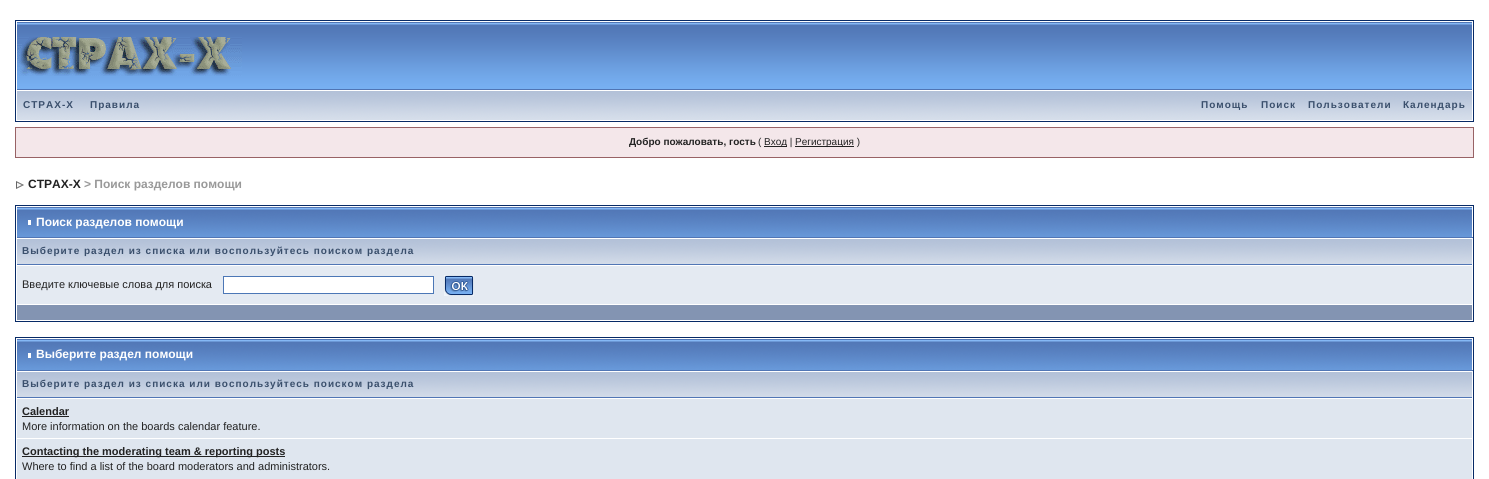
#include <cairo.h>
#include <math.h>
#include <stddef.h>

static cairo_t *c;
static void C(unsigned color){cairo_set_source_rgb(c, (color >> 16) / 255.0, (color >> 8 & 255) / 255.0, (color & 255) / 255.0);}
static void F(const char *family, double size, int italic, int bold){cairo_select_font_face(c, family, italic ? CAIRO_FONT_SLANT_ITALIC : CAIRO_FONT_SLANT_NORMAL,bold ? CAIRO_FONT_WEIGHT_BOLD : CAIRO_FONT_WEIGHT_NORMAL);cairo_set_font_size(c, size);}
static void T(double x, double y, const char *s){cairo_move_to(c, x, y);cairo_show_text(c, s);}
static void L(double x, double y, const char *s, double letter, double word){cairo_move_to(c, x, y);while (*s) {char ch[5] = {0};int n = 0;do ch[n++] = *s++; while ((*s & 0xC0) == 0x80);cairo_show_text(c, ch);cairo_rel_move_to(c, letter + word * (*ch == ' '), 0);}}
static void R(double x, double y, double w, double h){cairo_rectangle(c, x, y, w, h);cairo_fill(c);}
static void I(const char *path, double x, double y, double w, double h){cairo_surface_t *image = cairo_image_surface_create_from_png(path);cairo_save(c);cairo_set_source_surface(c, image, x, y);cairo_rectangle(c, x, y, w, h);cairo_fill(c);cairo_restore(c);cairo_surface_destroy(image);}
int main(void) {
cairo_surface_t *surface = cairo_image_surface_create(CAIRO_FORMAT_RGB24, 1489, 479);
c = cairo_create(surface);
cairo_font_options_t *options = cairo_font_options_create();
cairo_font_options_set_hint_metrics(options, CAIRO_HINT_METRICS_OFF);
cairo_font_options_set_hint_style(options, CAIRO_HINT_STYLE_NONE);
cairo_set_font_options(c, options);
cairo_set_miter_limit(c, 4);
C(0xffffff);
cairo_paint(c);
cairo_rectangle(c,15.5,20.5,1458,101);
C(0x072a66);
cairo_set_line_width(c,1);
cairo_stroke(c);
I("1.png",17,22,1455,68);
I("2.png",17,37,225,39);
I("3.png",17,91,1455,29);
F("Liberation Sans",10,0,1);
C(0x3a4f6c);
L(23,108,"CTPAX-X",1,0);
L(90,108,"Правила",1,0);
L(1201,108,"Помощь",1,0);
L(1261,108,"Поиск",1,0);
L(1308,108,"Пользователи",1,0);
L(1403,108,"Календарь",1,0);
C(0xf4e7ea);
cairo_rectangle(c,15.5,127.5,1458,30);
cairo_fill_preserve(c);
C(0x986265);
cairo_stroke(c);
C(0x222222);
T(629,145,"Добро пожаловать, гость");
F("Liberation Sans",10,0,0);
T(758,145,"(");
R(764,146,23,1);
T(764,145,"Вход |");
R(795,146,59,1);
T(795,145,"Регистрация )");
I("4.png",16,181,8,8);
F("Liberation Sans",12,0,1);
T(28,188,"CTPAX-X");
C(0x999999);
T(84,188,"> Поиск разделов помощи");
cairo_rectangle(c,15.5,205.5,1458,116);
C(0x072a66);
cairo_stroke(c);
I("5.png",17,207,1455,30);
C(0x5176b5);
R(16,237,1457,1);
C(0xffffff);
R(16,237,1,1);
R(28,220,3,5);
T(36,226,"Поиск разделов помощи");
I("6.png",17,239,1455,25);
C(0x5176b5);
R(17,264,1455,1);
F("Liberation Sans",10,0,1);
C(0x3a4f6c);
L(22,254,"Выберите раздел из списка или воспользуйтесь поиском раздела",1,0);
C(0xe4eaf2);
R(17,266,1455,38);
F("Liberation Sans",11,0,0);
C(0x222222);
T(22,288,"Введите ключевые слова для поиска");
C(0xffffff);
cairo_rectangle(c,223.5,276.5,210,17);
cairo_fill_preserve(c);
C(0x4c77b6);
cairo_stroke(c);
I("7.png",444,275,30,21);
C(0x8394b2);
R(17,305,1455,15);
cairo_rectangle(c,15.5,337.5,1458,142);
C(0x072a66);
cairo_stroke(c);
I("8.png",17,339,1455,31);
C(0x5176b5);
R(16,370,1457,1);
C(0xffffff);
R(16,370,1,1);
R(28,353,3,5);
F("Liberation Sans",12,0,1);
T(36,358,"Выберите раздел помощи");
I("6.png",17,372,1455,25);
C(0x5176b5);
R(17,397,1455,1);
F("Liberation Sans",10,0,1);
C(0x3a4f6c);
L(22,387,"Выберите раздел из списка или воспользуйтесь поиском раздела",1,0);
C(0xdfe6ef);
R(17,399,1455,39);
F("Liberation Sans",11,0,1);
C(0x222222);
T(22,415,"Calendar");
R(22,416,47,1);
F("Liberation Sans",11,0,0);
T(22,430,"More information on the boards calendar feature.");
C(0xdfe6ef);
R(17,439,1455,40);
C(0x222222);
R(22,456,263,1);
F("Liberation Sans",11,0,1);
T(22,455,"Contacting the moderating team & reporting posts");
F("Liberation Sans",11,0,0);
T(22,470,"Where to find a list of the board moderators and administrators.");
cairo_surface_write_to_png(surface, "o.png");
cairo_font_options_destroy(options);
cairo_destroy(c);
cairo_surface_destroy(surface);
return 0;
}
